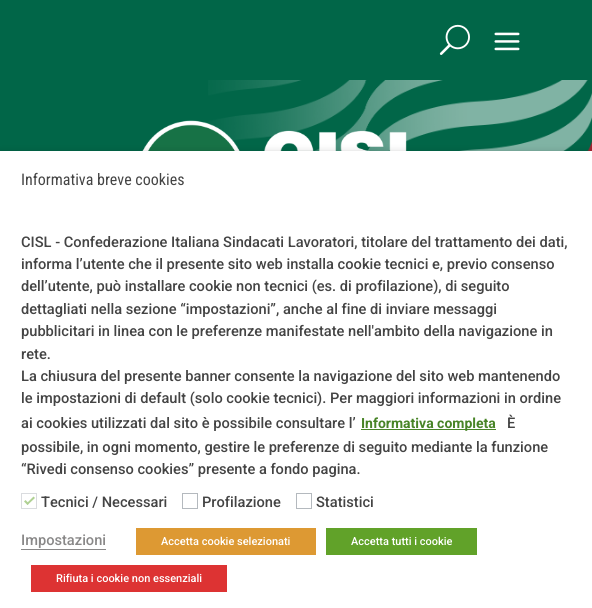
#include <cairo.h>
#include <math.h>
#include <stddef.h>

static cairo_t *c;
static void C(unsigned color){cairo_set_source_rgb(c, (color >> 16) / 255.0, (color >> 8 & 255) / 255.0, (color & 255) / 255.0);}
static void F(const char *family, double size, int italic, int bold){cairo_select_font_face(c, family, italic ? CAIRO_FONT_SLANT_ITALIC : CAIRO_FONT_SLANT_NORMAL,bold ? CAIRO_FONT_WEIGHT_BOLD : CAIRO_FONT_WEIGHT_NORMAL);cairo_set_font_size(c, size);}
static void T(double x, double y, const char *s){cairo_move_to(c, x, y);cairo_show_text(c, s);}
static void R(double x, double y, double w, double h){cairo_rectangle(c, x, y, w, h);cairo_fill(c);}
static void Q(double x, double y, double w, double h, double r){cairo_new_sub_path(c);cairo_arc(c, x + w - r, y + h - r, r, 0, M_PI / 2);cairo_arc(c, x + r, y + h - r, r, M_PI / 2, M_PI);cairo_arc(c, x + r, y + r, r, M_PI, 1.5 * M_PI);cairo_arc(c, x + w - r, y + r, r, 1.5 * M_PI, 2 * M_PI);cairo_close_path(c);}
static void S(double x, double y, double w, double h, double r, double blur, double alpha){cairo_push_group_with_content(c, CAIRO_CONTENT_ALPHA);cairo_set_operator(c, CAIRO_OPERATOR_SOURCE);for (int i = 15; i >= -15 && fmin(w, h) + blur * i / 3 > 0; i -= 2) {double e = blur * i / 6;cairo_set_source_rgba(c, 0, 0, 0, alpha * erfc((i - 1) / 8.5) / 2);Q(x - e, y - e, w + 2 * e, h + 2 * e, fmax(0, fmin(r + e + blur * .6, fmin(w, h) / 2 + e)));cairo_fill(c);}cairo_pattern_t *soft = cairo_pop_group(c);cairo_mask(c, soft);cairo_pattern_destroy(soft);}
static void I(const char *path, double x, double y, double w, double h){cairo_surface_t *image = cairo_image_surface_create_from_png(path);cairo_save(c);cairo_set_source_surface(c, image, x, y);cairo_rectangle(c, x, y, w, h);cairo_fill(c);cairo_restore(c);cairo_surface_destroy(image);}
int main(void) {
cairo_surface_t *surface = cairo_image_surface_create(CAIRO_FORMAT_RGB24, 592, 608);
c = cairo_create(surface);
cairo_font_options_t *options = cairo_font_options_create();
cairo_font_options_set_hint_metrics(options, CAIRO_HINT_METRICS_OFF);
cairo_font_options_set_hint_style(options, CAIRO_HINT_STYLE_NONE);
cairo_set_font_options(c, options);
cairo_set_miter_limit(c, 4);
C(0x016648);
cairo_paint(c);
I("1.png",439,24,31,31);
I("2.png",494,32,26,19);
I("3.png",208,80,384,71);
I("4.png",142,120,265,31);
C(0x000000);
S(0,156,592,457,0,5,.5);
C(0xffffff);
R(0,151,592,457);
F("Roboto Condensed",16,0,0);
C(0x444444);
T(21,185,"Informativa breve cookies");
F("Roboto Medium",14.65,0,0);
T(21,247,"CISL - Confederazione Italiana Sindacati Lavoratori, titolare del trattamento dei dati,");
T(21,269,"informa l’utente che il presente sito web installa cookie tecnici e, previo consenso");
T(21,291,"dell’utente, può installare cookie non tecnici (es. di profilazione), di seguito");
T(21,314,"dettagliati nella sezione “impostazioni”, anche al fine di inviare messaggi");
T(21,336,"pubblicitari in linea con le preferenze manifestate nell'ambito della navigazione in");
T(21,359,"rete.");
T(21,381,"La chiusura del presente banner consente la navigazione del sito web mantenendo");
T(21,403,"le impostazioni di default (solo cookie tecnici). Per maggiori informazioni in ordine");
T(21,428,"ai cookies utilizzati dal sito è possibile consultare l’");
C(0x488427);
R(361,429,135,1);
F("Roboto",14,0,1);
T(361,428,"Informativa completa");
F("Roboto Medium",14.65,0,0);
C(0x444444);
T(507,428,"È");
T(21,452,"possibile, in ogni momento, gestire le preferenze di seguito mediante la funzione");
T(21,474,"“Rivedi consenso cookies” presente a fondo pagina.");
cairo_rectangle(c,21.5,493.5,15,15);
C(0xdadcdf);
cairo_set_line_width(c,1);
cairo_stroke(c);
C(0xb0d194);
cairo_new_path(c);
cairo_move_to(c,33.5,496.5);
cairo_line_to(c,35,498);
cairo_line_to(c,27.5,505);
cairo_line_to(c,26.5,503.5);
cairo_close_path(c);
cairo_fill(c);
cairo_new_path(c);
cairo_move_to(c,25.5,500);
cairo_line_to(c,29,503.5);
cairo_line_to(c,27.5,505);
cairo_line_to(c,24,501.5);
cairo_close_path(c);
cairo_fill(c);
C(0x444444);
T(41,507,"Tecnici / Necessari");
cairo_rectangle(c,182.5,493.5,15,15);
C(0xb4b9be);
cairo_stroke(c);
C(0x444444);
T(202,507,"Profilazione");
cairo_rectangle(c,296.5,493.5,15,15);
C(0xb4b9be);
cairo_stroke(c);
C(0x444444);
T(316,507,"Statistici");
C(0x898888);
T(21,545,"Impostazioni");
R(21,549,85,1);
C(0xdd9933);
R(136,528,180,27);
F("Roboto Medium",11,0,0);
C(0xffffff);
T(161,545,"Accetta cookie selezionati");
C(0x61a229);
R(326,528,151,27);
C(0xffffff);
T(351,545,"Accetta tutti i cookie");
C(0xdd3333);
R(31,565,196,27);
C(0xffffff);
T(56,582,"Rifiuta i cookie non essenziali");
cairo_surface_write_to_png(surface, "o.png");
cairo_font_options_destroy(options);
cairo_destroy(c);
cairo_surface_destroy(surface);
return 0;
}
